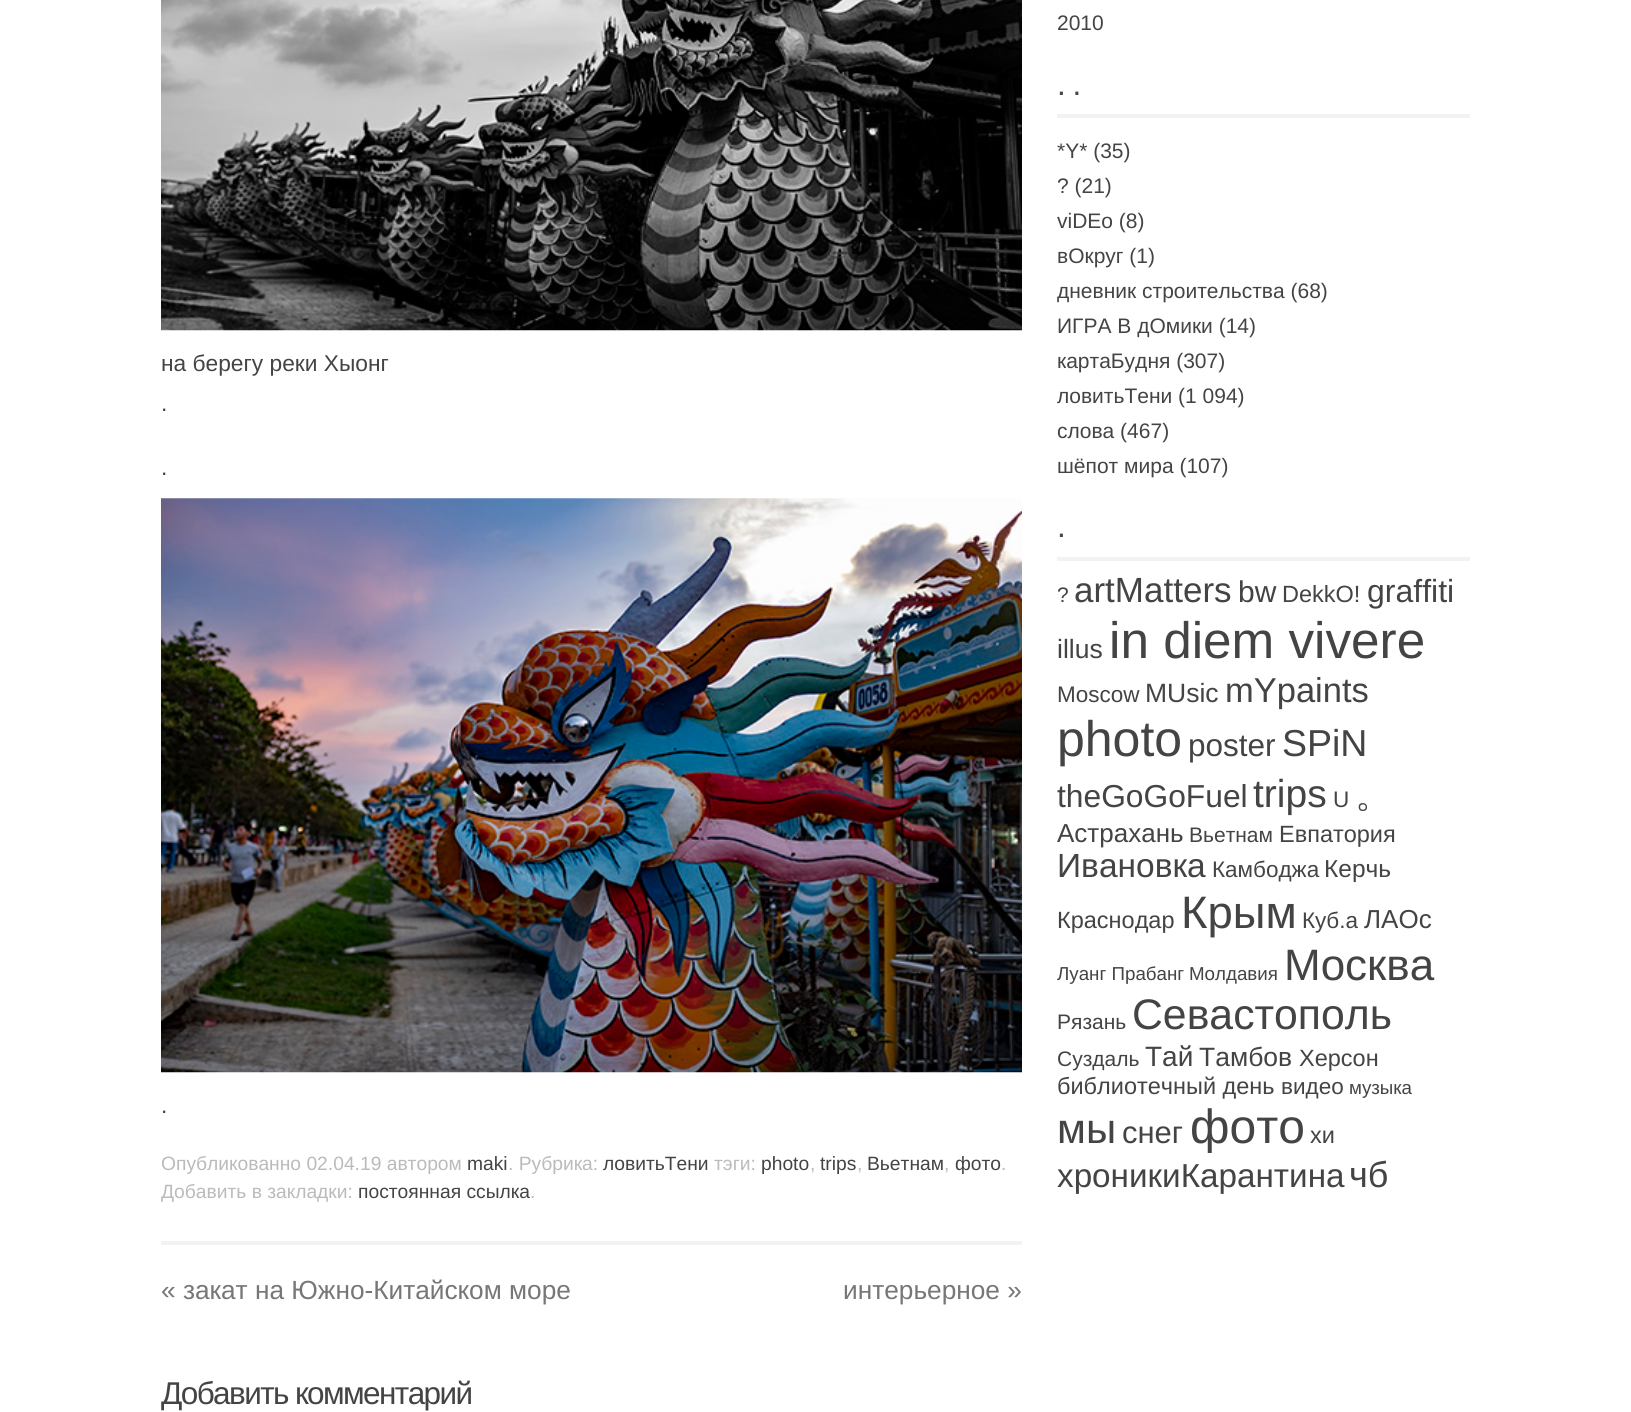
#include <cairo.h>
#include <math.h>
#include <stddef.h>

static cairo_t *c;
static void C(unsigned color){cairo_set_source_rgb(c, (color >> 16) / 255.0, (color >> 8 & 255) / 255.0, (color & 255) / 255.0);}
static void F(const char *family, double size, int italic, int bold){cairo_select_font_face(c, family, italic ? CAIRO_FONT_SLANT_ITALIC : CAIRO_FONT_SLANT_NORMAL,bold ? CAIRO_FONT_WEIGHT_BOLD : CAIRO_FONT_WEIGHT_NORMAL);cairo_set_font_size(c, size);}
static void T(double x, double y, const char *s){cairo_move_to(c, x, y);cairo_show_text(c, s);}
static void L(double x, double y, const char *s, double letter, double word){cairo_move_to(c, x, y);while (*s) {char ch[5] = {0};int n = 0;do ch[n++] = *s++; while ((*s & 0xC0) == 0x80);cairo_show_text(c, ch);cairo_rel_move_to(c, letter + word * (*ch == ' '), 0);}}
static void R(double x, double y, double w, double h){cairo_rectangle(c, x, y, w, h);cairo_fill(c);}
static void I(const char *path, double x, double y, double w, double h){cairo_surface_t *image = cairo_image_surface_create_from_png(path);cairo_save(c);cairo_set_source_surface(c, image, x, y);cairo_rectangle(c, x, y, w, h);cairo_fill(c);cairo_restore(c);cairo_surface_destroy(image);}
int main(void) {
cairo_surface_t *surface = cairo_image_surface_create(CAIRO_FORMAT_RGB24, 1631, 1412);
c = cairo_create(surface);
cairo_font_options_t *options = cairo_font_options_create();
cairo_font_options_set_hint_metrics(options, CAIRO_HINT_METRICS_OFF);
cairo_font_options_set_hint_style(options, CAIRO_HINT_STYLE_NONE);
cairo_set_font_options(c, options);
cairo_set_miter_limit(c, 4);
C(0xffffff);
cairo_paint(c);
I("1.png",161,0,861,331);
F("Liberation Sans",22.75,0,0);
C(0x444444);
T(161,371,"на берегу реки Хыонг");
T(161,411,".");
T(161,475,".");
I("2.png",161,498,861,575);
T(161,1113,".");
F("Liberation Sans",19.25,0,0);
C(0xbbbbbb);
T(161,1170,"Опубликованно 02.04.19 автором");
C(0x444444);
T(467,1170,"maki");
C(0xbbbbbb);
T(508,1170,". Рубрика:");
C(0x444444);
T(603,1170,"ловитьТени");
C(0xbbbbbb);
T(714,1170,"тэги:");
C(0x444444);
T(761,1170,"photo");
C(0xbbbbbb);
T(810,1170,",");
C(0x444444);
T(820,1170,"trips");
C(0xbbbbbb);
T(857,1170,",");
C(0x444444);
T(867,1170,"Вьетнам");
C(0xbbbbbb);
T(944,1170,",");
C(0x444444);
T(955,1170,"фото");
C(0xbbbbbb);
T(1001,1170,".");
T(161,1198,"Добавить в закладки:");
C(0x444444);
T(358,1198,"постоянная ссылка");
C(0xbbbbbb);
T(530,1198,".");
C(0xf1f2f4);
R(161,1241,861,4);
F("Liberation Sans",26.25,0,0);
C(0x777777);
T(161,1299,"« закат на Южно-Китайском море");
T(843,1299,"интерьерное »");
F("Liberation Sans",31.5,0,0);
C(0x444444);
L(161,1404,"Добавить комментарий",-1.6,0);
F("Liberation Sans",21,0,0);
T(1057,30,"2010");
C(0xf1f2f4);
R(1057,114,413,4);
F("Liberation Sans",31.5,0,0);
C(0x444444);
L(1057,95,". .",-1,0);
F("Liberation Sans",21,0,0);
T(1057,158,"*Y* (35)");
T(1057,193,"? (21)");
T(1057,228,"viDEo (8)");
T(1057,263,"вОкруг (1)");
T(1057,298,"дневник строительства (68)");
T(1057,333,"ИГРА В дОмики (14)");
T(1057,368,"картаБудня (307)");
T(1057,403,"ловитьТени (1 094)");
T(1057,438,"слова (467)");
T(1057,473,"шёпот мира (107)");
C(0xf1f2f4);
R(1057,557,413,4);
F("Liberation Sans",31.5,0,0);
C(0x444444);
L(1057,537,".",-1,0);
F("Liberation Sans",21,0,0);
T(1057,602,"?");
F("Liberation Sans",35,0,0);
T(1074,602,"artMatters");
F("Liberation Sans",30,0,0);
T(1238,602,"bw");
F("Liberation Sans",23.5,0,0);
T(1282,602,"DekkO!");
F("Liberation Sans",32,0,0);
T(1367,602,"graffiti");
F("Liberation Sans",26.5,0,0);
T(1057,658,"illus");
F("Liberation Sans",51.25,0,0);
T(1109,658,"in diem vivere");
F("Liberation Sans",22.5,0,0);
T(1057,702,"Moscow");
F("Liberation Sans",26.5,0,0);
T(1145,702,"MUsic");
F("Liberation Sans",34.5,0,0);
T(1225,702,"mYpaints");
F("Liberation Sans",50,0,0);
T(1057,756,"photo");
F("Liberation Sans",31.5,0,0);
T(1188,756,"poster");
F("Liberation Sans",37.5,0,0);
T(1282,756,"SPiN");
F("Liberation Sans",31.75,0,0);
T(1057,807,"theGoGoFuel");
F("Liberation Sans",39,0,0);
T(1253,807,"trips");
F("Liberation Sans",22.5,0,0);
T(1333,807,"U");
F("WenQuanYi Zen Hei Medium",37.5,0,0);
T(1355,807,"。");
F("Liberation Sans",26,0,0);
T(1057,842,"Астрахань");
F("Liberation Sans",21,0,0);
T(1189,842,"Вьетнам");
F("Liberation Sans",23.5,0,0);
T(1279,842,"Евпатория");
F("Liberation Sans",33.5,0,0);
T(1057,877,"Ивановка");
F("Liberation Sans",22.5,0,0);
T(1212,877,"Камбоджа");
F("Liberation Sans",24.5,0,0);
T(1324,877,"Керчь");
F("Liberation Sans",23.5,0,0);
T(1057,928,"Краснодар");
F("Liberation Sans",45.5,0,0);
T(1181,928,"Крым");
F("Liberation Sans",22.5,0,0);
T(1302,928,"Куб.а");
F("Liberation Sans",26,0,0);
T(1364,928,"ЛАОс");
F("Liberation Sans",18.75,0,0);
T(1057,980,"Луанг Прабанг");
T(1189,980,"Молдавия");
F("Liberation Sans",44,0,0);
T(1284,980,"Москва");
F("Liberation Sans",21,0,0);
T(1057,1029,"Рязань");
F("Liberation Sans",42.75,0,0);
T(1132,1029,"Севастополь");
F("Liberation Sans",21,0,0);
T(1057,1066,"Суздаль");
F("Liberation Sans",28,0,0);
T(1145,1066,"Тай");
F("Liberation Sans",26.5,0,0);
T(1199,1066,"Тамбов");
F("Liberation Sans",23.5,0,0);
T(1299,1066,"Херсон");
T(1057,1094,"библиотечный день");
F("Liberation Sans",22.5,0,0);
T(1281,1094,"видео");
F("Liberation Sans",18.75,0,0);
T(1349,1094,"музыка");
F("Liberation Sans",42,0,0);
T(1057,1143,"мы");
F("Liberation Sans",31,0,0);
T(1122,1143,"снег");
F("Liberation Sans",48,0,0);
T(1190,1143,"фото");
F("Liberation Sans",23.5,0,0);
T(1310,1143,"хи");
F("Liberation Sans",33.25,0,0);
T(1057,1187,"хроникиКарантина");
F("Liberation Sans",36,0,0);
T(1349,1187,"чб");
cairo_surface_write_to_png(surface, "o.png");
cairo_font_options_destroy(options);
cairo_destroy(c);
cairo_surface_destroy(surface);
return 0;
}
